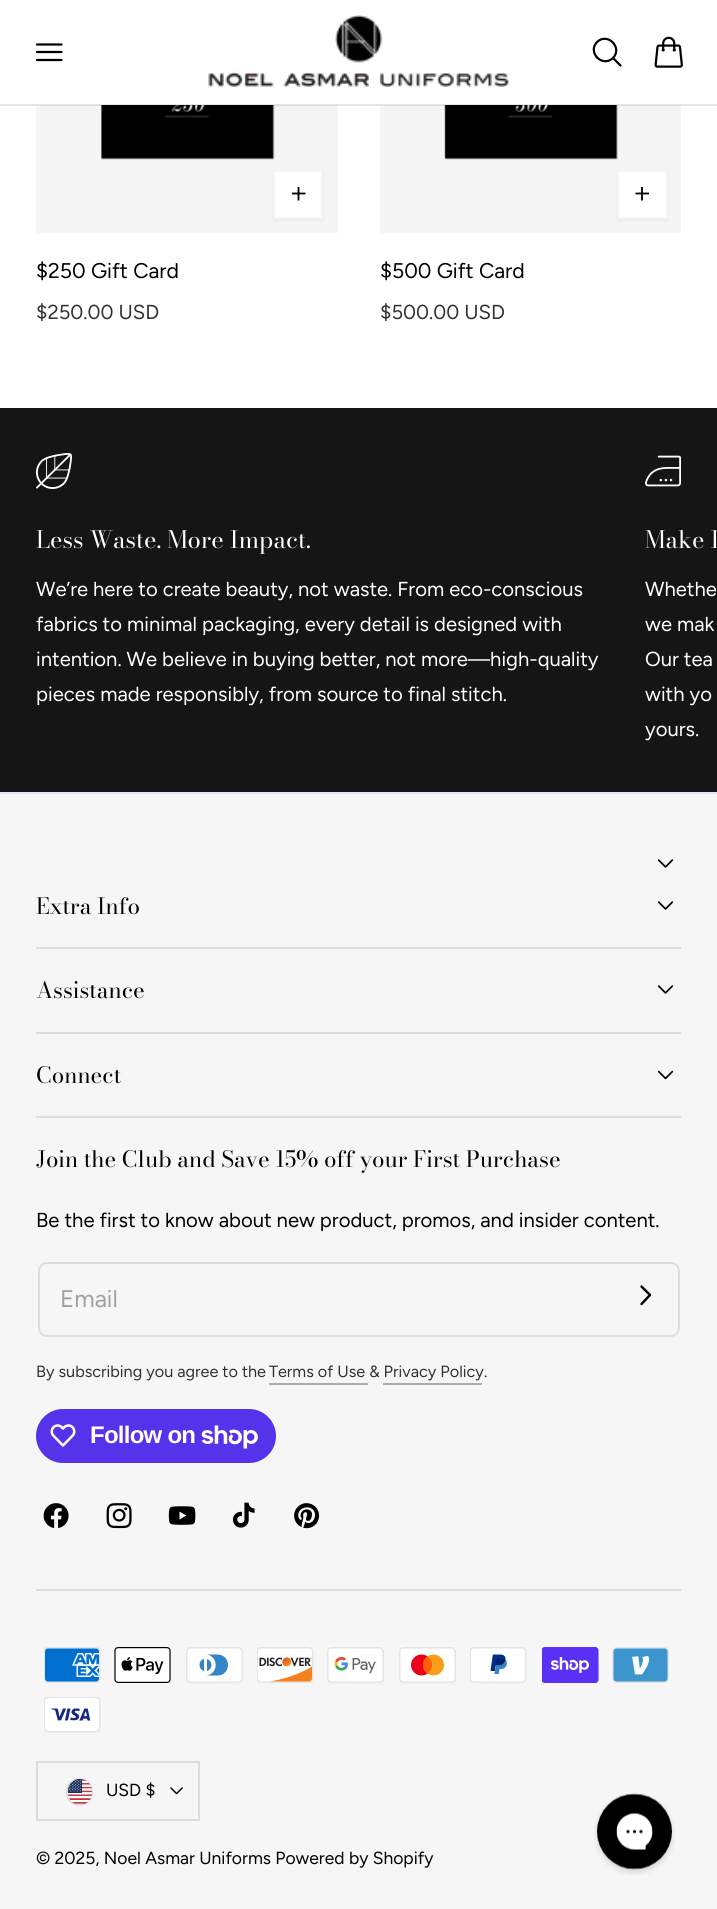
#include <cairo.h>
#include <math.h>
#include <stddef.h>

static cairo_t *c;
static void C(unsigned color){cairo_set_source_rgb(c, (color >> 16) / 255.0, (color >> 8 & 255) / 255.0, (color & 255) / 255.0);}
static void F(const char *family, double size, int italic, int bold){cairo_select_font_face(c, family, italic ? CAIRO_FONT_SLANT_ITALIC : CAIRO_FONT_SLANT_NORMAL,bold ? CAIRO_FONT_WEIGHT_BOLD : CAIRO_FONT_WEIGHT_NORMAL);cairo_set_font_size(c, size);}
static void T(double x, double y, const char *s){cairo_move_to(c, x, y);cairo_show_text(c, s);}
static void L(double x, double y, const char *s, double letter, double word){cairo_move_to(c, x, y);while (*s) {char ch[5] = {0};int n = 0;do ch[n++] = *s++; while ((*s & 0xC0) == 0x80);cairo_show_text(c, ch);cairo_rel_move_to(c, letter + word * (*ch == ' '), 0);}}
static void R(double x, double y, double w, double h){cairo_rectangle(c, x, y, w, h);cairo_fill(c);}
static void Q(double x, double y, double w, double h, double r){cairo_new_sub_path(c);cairo_arc(c, x + w - r, y + h - r, r, 0, M_PI / 2);cairo_arc(c, x + r, y + h - r, r, M_PI / 2, M_PI);cairo_arc(c, x + r, y + r, r, M_PI, 1.5 * M_PI);cairo_arc(c, x + w - r, y + r, r, 1.5 * M_PI, 2 * M_PI);cairo_close_path(c);}
static void S(double x, double y, double w, double h, double r, double blur, double alpha){cairo_push_group_with_content(c, CAIRO_CONTENT_ALPHA);cairo_set_operator(c, CAIRO_OPERATOR_SOURCE);for (int i = 15; i >= -15 && fmin(w, h) + blur * i / 3 > 0; i -= 2) {double e = blur * i / 6;cairo_set_source_rgba(c, 0, 0, 0, alpha * erfc((i - 1) / 8.5) / 2);Q(x - e, y - e, w + 2 * e, h + 2 * e, fmax(0, fmin(r + e + blur * .6, fmin(w, h) / 2 + e)));cairo_fill(c);}cairo_pattern_t *soft = cairo_pop_group(c);cairo_mask(c, soft);cairo_pattern_destroy(soft);}
static void I(const char *path, double x, double y, double w, double h){cairo_surface_t *image = cairo_image_surface_create_from_png(path);cairo_save(c);cairo_set_source_surface(c, image, x, y);cairo_rectangle(c, x, y, w, h);cairo_fill(c);cairo_restore(c);cairo_surface_destroy(image);}
int main(void) {
cairo_surface_t *surface = cairo_image_surface_create(CAIRO_FORMAT_RGB24, 717, 1909);
c = cairo_create(surface);
cairo_font_options_t *options = cairo_font_options_create();
cairo_font_options_set_hint_metrics(options, CAIRO_HINT_METRICS_OFF);
cairo_font_options_set_hint_style(options, CAIRO_HINT_STYLE_NONE);
cairo_set_font_options(c, options);
cairo_set_miter_limit(c, 4);
C(0xffffff);
cairo_paint(c);
C(0xf5f5f5);
R(36,105,302,128);
I("3.png",101,105,174,55);
R(380,105,301,128);
I("4.png",443,105,176,55);
cairo_set_source_rgba(c,0,0,0,0.1);
R(0,104,717,2);
cairo_new_path(c);
cairo_move_to(c,37,44.5);
cairo_line_to(c,61.5,44.5);
cairo_move_to(c,37,52);
cairo_line_to(c,61.5,52);
cairo_move_to(c,37,60);
cairo_line_to(c,61.5,60);
C(0x000000);
cairo_set_line_width(c,2.2);
cairo_set_line_cap(c,CAIRO_LINE_CAP_ROUND);
cairo_set_line_join(c,CAIRO_LINE_JOIN_ROUND);
cairo_stroke(c);
I("1.png",208,15,301,72);
cairo_new_path(c);
cairo_move_to(c,620.5,65.5);
cairo_line_to(c,613,58);
cairo_move_to(c,613,58);
cairo_curve_to(c,623,47.5,607.5,32,597,42);
cairo_curve_to(c,587,52.5,602.5,68,613,58);
cairo_close_path(c);
cairo_stroke(c);
I("2.png",654,36,29,32);
C(0x000000);
S(273,171,50,50,0,1.5,.05);
C(0xffffff);
cairo_rectangle(c,274,171,48,47);
cairo_fill_preserve(c);
C(0xf4f5f5);
cairo_set_line_width(c,2);
cairo_set_line_cap(c,CAIRO_LINE_CAP_BUTT);
cairo_set_line_join(c,CAIRO_LINE_JOIN_MITER);
cairo_stroke(c);
cairo_new_path(c);
cairo_move_to(c,298.5,187);
cairo_line_to(c,298.5,200.5);
cairo_move_to(c,305.5,193.5);
cairo_line_to(c,292,193.5);
C(0x000000);
cairo_set_line_width(c,1.8);
cairo_stroke(c);
F("Figtree",21.25,0,0);
T(36,278,"$250 Gift Card");
F("Figtree",20.25,0,0);
C(0x313131);
T(36,319,"$250.00 USD");
C(0x000000);
S(617,171,51,50,0,1.5,.05);
C(0xffffff);
cairo_rectangle(c,618,171,49,47);
cairo_fill_preserve(c);
C(0xf4f5f5);
cairo_set_line_width(c,2);
cairo_stroke(c);
cairo_new_path(c);
cairo_move_to(c,642,187);
cairo_line_to(c,642,200.5);
cairo_move_to(c,649,193.5);
cairo_line_to(c,635.5,193.5);
C(0x000000);
cairo_set_line_width(c,1.8);
cairo_stroke(c);
F("Figtree",21.25,0,0);
T(380,278,"$500 Gift Card");
F("Figtree",20.25,0,0);
C(0x313131);
T(380,319,"$500.00 USD");
C(0x151515);
R(0,408,717,384);
I("5.png",36,453,36,36);
F("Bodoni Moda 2",23.8,0,0);
C(0xffffff);
T(36,548,"Less Waste. More Impact.");
F("Figtree",20.25,0,0);
T(36,596,"We’re here to create beauty, not waste. From eco-conscious");
T(36,631,"fabrics to minimal packaging, every detail is designed with");
T(36,666,"intention. We believe in buying better, not more—high-quality");
T(36,701,"pieces made responsibly, from source to final stitch.");
I("6.png",645,455,36,32);
F("Bodoni Moda 2",23.8,0,0);
T(645,548,"Make I");
F("Figtree",20.25,0,0);
T(645,596,"Whethe");
T(645,631,"we mak");
T(645,666,"Our tea");
T(645,701,"with yo");
T(645,736,"yours.");
C(0xe0e6f4);
R(0,792,717,2);
C(0xf6f6f6);
R(0,794,717,1115);
I("7.png",657,859,17,9);
C(0xdddddd);
R(36,947,645,2);
F("Bodoni Moda",22.35,0,0);
C(0x000000);
T(36,914,"Extra Info");
I("7.png",657,901,17,9);
C(0xdddddd);
R(36,1032,645,2);
C(0x000000);
T(36,998,"Assistance");
I("7.png",657,985,17,9);
C(0xdddddd);
R(36,1116,645,2);
C(0x000000);
T(36,1083,"Connect");
I("8.png",657,1070,17,10);
T(36,1167,"Join the Club and Save 15% off your First Purchase");
F("Figtree",20.25,0,0);
T(36,1227,"Be the first to know about new product, promos, and insider content.");
Q(39,1263,640,73,8);
C(0xdddddd);
cairo_set_line_width(c,2);
cairo_stroke(c);
F("Figtree",24,0,0);
C(0xa0a0a0);
T(60,1307,"Email");
cairo_new_path(c);
cairo_move_to(c,641.5,1286.5);
cairo_line_to(c,650,1295);
cairo_line_to(c,641.5,1304);
C(0x000000);
cairo_set_line_width(c,2.4);
cairo_set_line_cap(c,CAIRO_LINE_CAP_ROUND);
cairo_set_line_join(c,CAIRO_LINE_JOIN_ROUND);
cairo_stroke(c);
F("Figtree",16.25,0,0);
C(0x313131);
T(36,1377,"By subscribing you agree to the");
T(269,1377,"Terms of Use & Privacy Policy.");
C(0xacacac);
R(269,1383,99,2);
R(383,1383,99,2);
C(0x5433eb);
Q(36,1409,240,54,27);
cairo_fill(c);
I("9.png",50,1424,26,23);
F("Liberation Sans",24,0,1);
C(0xffffff);
L(90,1443,"Follow on",-.75,0);
I("10.png",201,1425,57,24);
I("11.png",43,1503,26,25);
I("12.png",106,1503,26,26);
I("13.png",168,1506,28,19);
I("14.png",232,1502,23,26);
I("15.png",294,1503,26,26);
C(0xdddddd);
R(36,1589,645,2);
I("16.png",44,1647,57,36);
I("17.png",114,1647,57,36);
I("18.png",186,1647,57,36);
I("19.png",257,1647,57,36);
I("20.png",327,1647,57,36);
I("21.png",399,1647,57,36);
I("22.png",470,1647,57,36);
I("23.png",542,1647,57,36);
I("24.png",612,1647,57,36);
I("25.png",44,1697,57,36);
cairo_rectangle(c,37,1762,162,58);
cairo_set_line_width(c,2);
cairo_set_line_cap(c,CAIRO_LINE_CAP_BUTT);
cairo_set_line_join(c,CAIRO_LINE_JOIN_MITER);
cairo_stroke(c);
Q(67,1779,25,26,12.5);
cairo_stroke(c);
I("26.png",68,1779,24,25);
F("Figtree",17.5,0,0);
C(0x000000);
T(106,1796,"USD $");
I("27.png",170,1787,13,8);
T(36,1864,"© 2025, Noel Asmar Uniforms Powered by Shopify");
I("28.png",594,1793,81,82);
cairo_surface_write_to_png(surface, "o.png");
cairo_font_options_destroy(options);
cairo_destroy(c);
cairo_surface_destroy(surface);
return 0;
}
